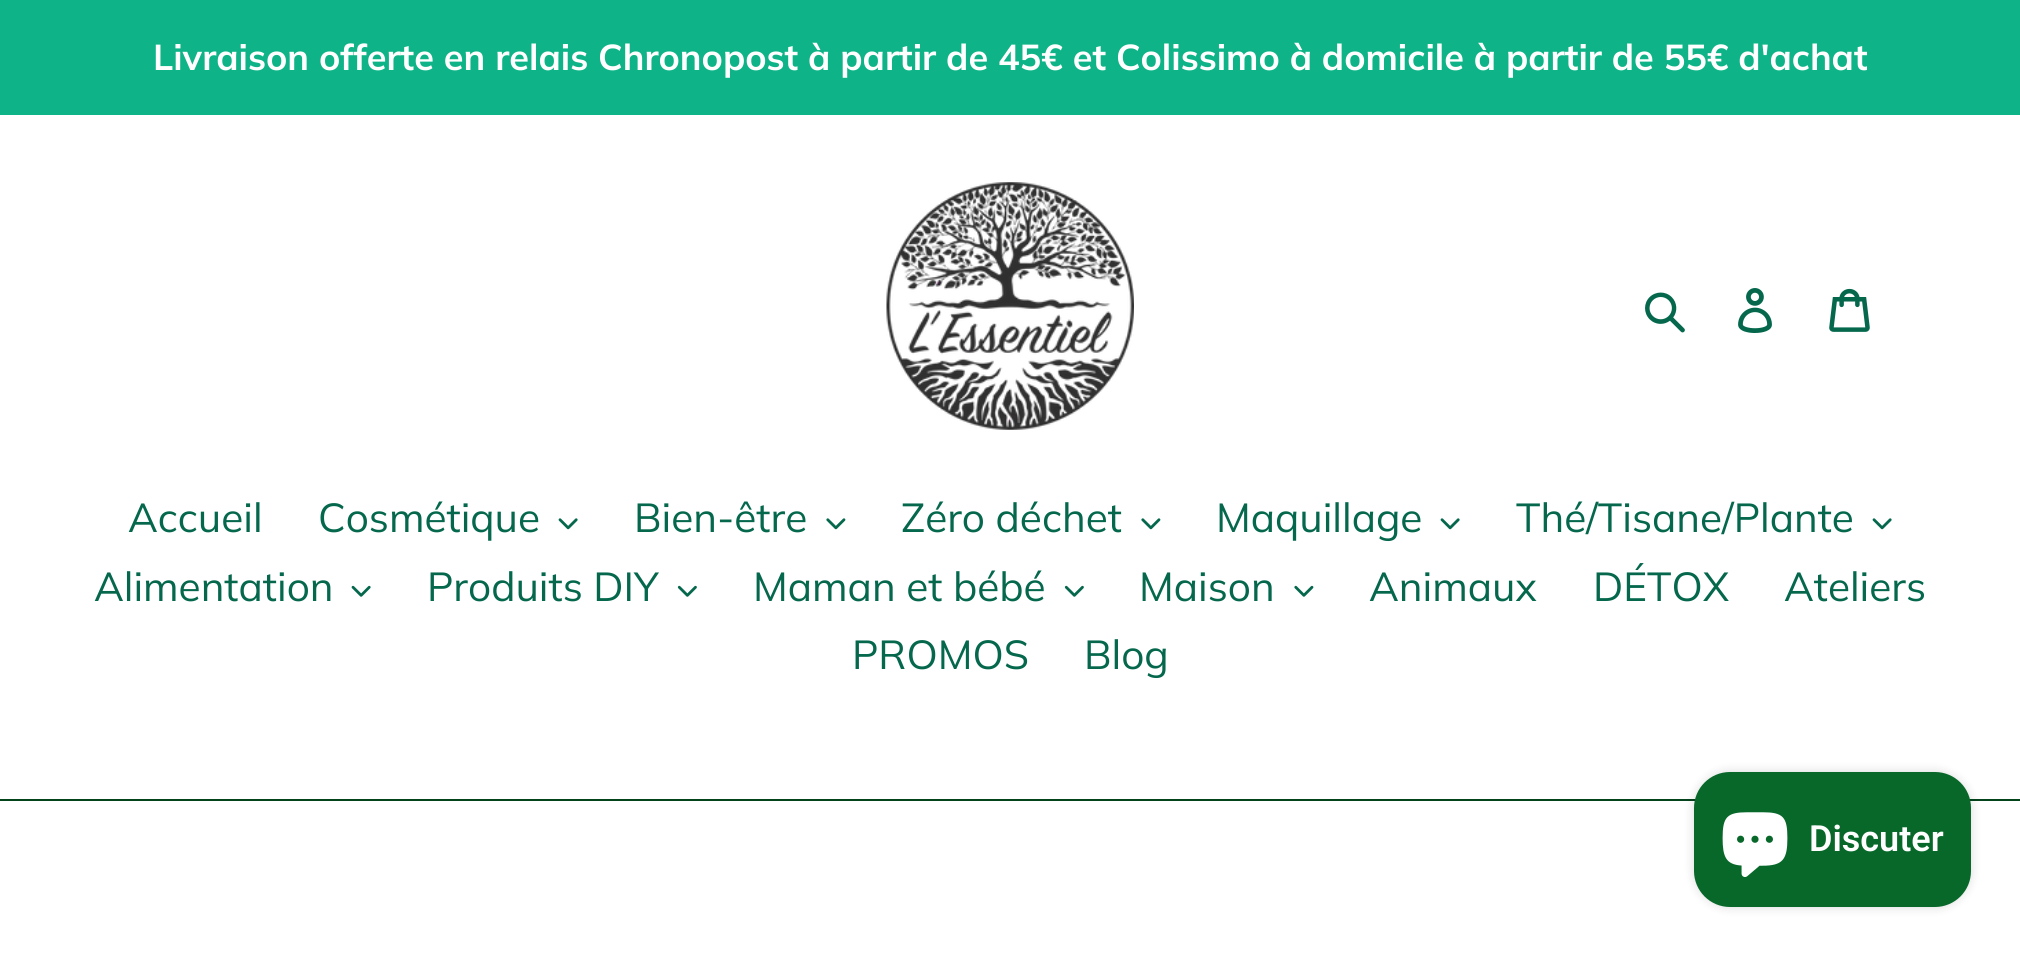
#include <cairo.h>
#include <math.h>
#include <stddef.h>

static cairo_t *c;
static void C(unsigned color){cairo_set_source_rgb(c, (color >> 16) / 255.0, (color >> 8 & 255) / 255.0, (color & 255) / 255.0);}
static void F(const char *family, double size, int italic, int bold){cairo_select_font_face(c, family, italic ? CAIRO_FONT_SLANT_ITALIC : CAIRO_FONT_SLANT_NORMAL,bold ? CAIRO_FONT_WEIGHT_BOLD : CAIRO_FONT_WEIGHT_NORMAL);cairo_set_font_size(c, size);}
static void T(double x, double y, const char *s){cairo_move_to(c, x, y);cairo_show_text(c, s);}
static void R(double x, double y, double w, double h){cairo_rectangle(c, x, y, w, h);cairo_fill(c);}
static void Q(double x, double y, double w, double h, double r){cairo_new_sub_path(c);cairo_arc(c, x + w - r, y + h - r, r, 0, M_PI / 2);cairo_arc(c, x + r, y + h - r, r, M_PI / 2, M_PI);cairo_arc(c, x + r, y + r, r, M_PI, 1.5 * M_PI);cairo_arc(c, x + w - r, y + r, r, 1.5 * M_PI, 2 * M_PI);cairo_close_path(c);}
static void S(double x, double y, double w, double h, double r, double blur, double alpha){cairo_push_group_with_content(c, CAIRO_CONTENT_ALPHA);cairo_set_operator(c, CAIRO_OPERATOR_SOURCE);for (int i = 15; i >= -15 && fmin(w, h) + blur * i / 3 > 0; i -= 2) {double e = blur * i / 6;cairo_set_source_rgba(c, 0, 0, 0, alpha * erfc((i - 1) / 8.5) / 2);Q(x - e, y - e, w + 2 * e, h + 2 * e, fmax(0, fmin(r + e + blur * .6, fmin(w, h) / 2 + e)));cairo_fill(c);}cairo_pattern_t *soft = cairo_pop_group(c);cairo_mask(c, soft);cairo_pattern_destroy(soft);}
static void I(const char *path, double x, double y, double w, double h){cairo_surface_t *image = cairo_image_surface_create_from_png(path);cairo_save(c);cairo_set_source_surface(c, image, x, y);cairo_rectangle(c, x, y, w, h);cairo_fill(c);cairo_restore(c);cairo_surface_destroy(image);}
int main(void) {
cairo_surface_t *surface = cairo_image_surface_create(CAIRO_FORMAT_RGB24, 2020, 953);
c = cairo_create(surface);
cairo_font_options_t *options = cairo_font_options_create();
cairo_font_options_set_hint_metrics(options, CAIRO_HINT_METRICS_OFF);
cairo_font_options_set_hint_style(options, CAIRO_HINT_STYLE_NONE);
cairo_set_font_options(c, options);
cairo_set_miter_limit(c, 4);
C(0xffffff);
cairo_paint(c);
C(0x0eb487);
R(0,0,2020,115);
F("Muli",36,0,1);
C(0xffffff);
T(153,70,"Livraison offerte en relais Chronopost à partir de 45€ et Colissimo à domicile à partir de 55€ d'achat");
I("1.png",886,182,248,248);
I("2.png",1645,292,40,41);
I("3.png",1738,288,34,45);
I("4.png",1829,288,41,44);
C(0x04431c);
R(0,799,2020,2);
F("Muli",40.5,0,0);
C(0x05684d);
T(128,532,"Accueil");
T(318,532,"Cosmétique");
I("5.png",558,518,20,12);
T(634,532,"Bien-être");
I("6.png",826,518,20,12);
T(901,532,"Zéro déchet");
I("6.png",1141,518,20,12);
T(1216,532,"Maquillage");
I("5.png",1440,518,20,12);
T(1516,532,"Thé/Tisane/Plante");
I("5.png",1872,518,20,12);
T(94,601,"Alimentation");
I("7.png",351,585,20,12);
T(427,601,"Produits DIY");
I("8.png",677,585,20,12);
T(753,601,"Maman et bébé");
I("8.png",1064,585,20,12);
T(1139,601,"Maison");
I("9.png",1294,585,20,12);
T(1369,601,"Animaux");
T(1593,601,"DÉTOX");
T(1784,601,"Ateliers");
T(852,669,"PROMOS");
T(1084,669,"Blog");
C(0x000000);
S(1694,772,277,135,36,5.5,.15);
C(0x07682a);
Q(1694,772,277,135,36);
cairo_fill(c);
I("10.png",1722,812,66,65);
F("Roboto SemiBold",36,0,0);
C(0xffffff);
T(1809,851,"Discuter");
cairo_surface_write_to_png(surface, "o.png");
cairo_font_options_destroy(options);
cairo_destroy(c);
cairo_surface_destroy(surface);
return 0;
}
